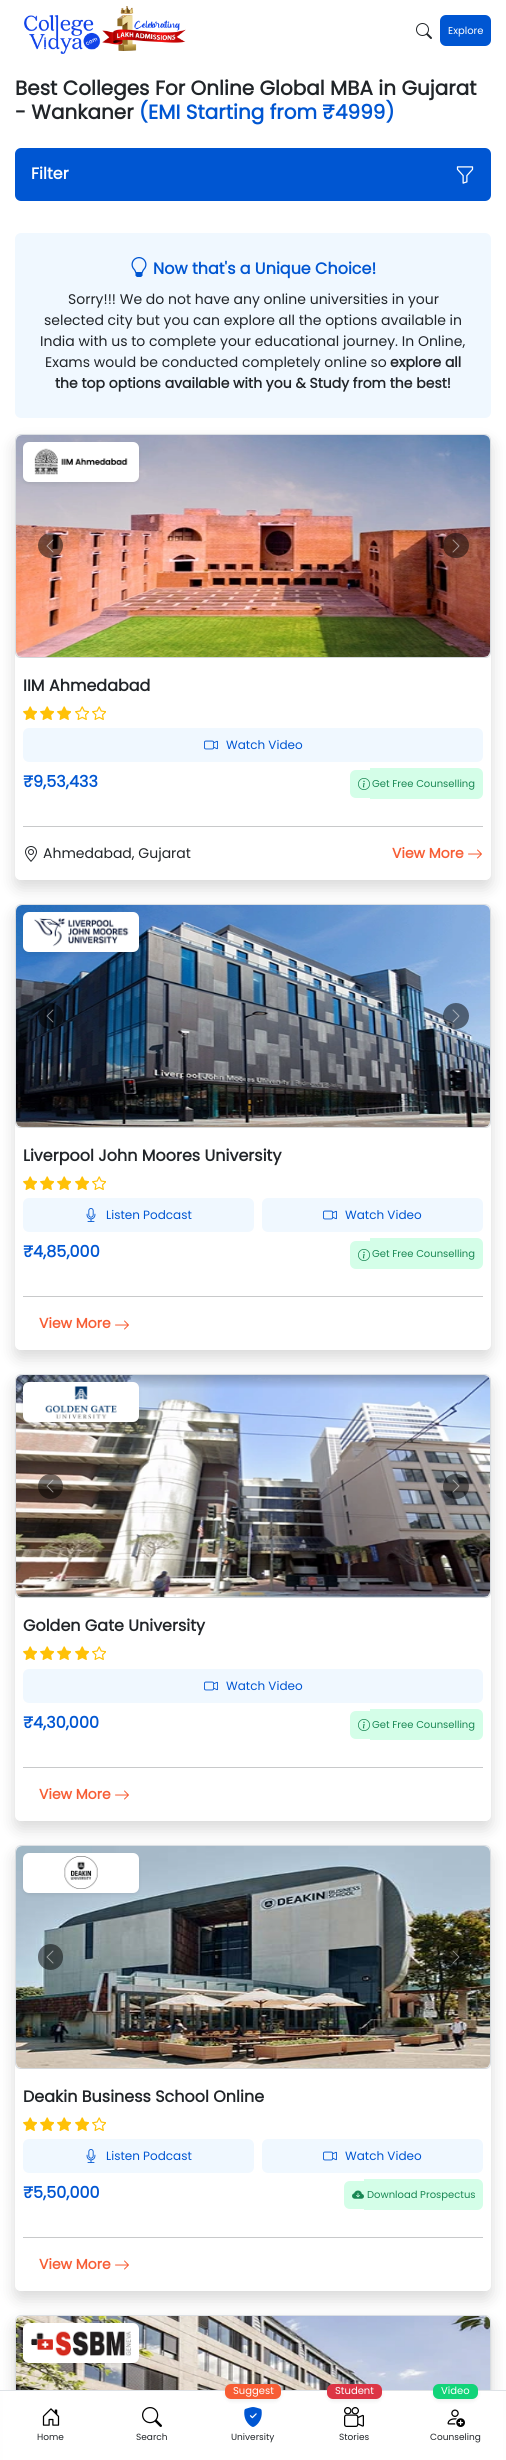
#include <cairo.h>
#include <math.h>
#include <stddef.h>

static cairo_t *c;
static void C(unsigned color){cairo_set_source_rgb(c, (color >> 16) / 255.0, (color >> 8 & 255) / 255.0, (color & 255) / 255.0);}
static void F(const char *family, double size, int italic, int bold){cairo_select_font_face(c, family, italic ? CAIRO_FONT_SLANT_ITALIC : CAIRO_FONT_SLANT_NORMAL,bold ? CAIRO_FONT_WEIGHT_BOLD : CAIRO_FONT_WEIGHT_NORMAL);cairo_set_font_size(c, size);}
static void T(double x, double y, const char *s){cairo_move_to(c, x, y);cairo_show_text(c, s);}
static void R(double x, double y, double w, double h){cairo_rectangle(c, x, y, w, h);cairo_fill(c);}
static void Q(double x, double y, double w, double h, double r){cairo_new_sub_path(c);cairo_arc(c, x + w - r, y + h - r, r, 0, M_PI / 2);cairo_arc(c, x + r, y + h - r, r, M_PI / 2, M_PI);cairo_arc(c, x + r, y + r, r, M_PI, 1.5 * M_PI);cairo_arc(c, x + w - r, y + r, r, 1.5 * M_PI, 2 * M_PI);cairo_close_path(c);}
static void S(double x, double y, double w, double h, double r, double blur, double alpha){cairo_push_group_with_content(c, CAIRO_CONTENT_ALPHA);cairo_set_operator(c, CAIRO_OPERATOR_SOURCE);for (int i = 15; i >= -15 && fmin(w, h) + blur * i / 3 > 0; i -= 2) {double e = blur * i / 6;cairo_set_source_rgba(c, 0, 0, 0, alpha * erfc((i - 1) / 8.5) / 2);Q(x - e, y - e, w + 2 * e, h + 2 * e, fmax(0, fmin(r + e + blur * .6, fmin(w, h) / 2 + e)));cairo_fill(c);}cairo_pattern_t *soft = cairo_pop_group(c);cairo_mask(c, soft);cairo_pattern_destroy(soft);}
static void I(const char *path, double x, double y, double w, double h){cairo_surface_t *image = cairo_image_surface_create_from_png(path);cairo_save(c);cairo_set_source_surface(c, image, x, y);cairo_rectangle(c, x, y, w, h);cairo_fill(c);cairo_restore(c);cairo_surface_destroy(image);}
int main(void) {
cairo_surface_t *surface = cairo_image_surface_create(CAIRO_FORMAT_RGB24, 506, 2460);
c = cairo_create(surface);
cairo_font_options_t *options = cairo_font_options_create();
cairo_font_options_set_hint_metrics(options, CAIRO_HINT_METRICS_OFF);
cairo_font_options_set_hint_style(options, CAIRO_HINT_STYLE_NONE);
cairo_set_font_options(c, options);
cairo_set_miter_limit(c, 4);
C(0xffffff);
cairo_paint(c);
I("1.png",24,6,162,48);
I("2.png",416,23,16,16);
C(0x0056d2);
Q(440,15,51,31,6);
cairo_fill(c);
F("Poppins",10,0,0);
C(0xffffff);
T(448,34,"Explore");
F("Poppins",20,0,1);
C(0x212529);
T(15,95,"Best Colleges For Online Global MBA in Gujarat");
T(15,119,"- Wankaner");
C(0x0056d2);
T(139,119,"(EMI Starting from");
F("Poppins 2",20,0,1);
T(322,119,"₹");
F("Poppins",20,0,1);
T(335,119,"4999)");
Q(15,148,476,53,6);
cairo_fill(c);
F("Poppins",16,0,1);
C(0xffffff);
T(31,179,"Filter");
I("3.png",456,166,18,18);
C(0xf0f8ff);
Q(15,233,476,185,6);
cairo_fill(c);
I("4.png",131,257,16,20);
C(0x0056d2);
T(153,274,"Now that's a Unique Choice!");
F("Poppins",14,0,0);
C(0x212529);
T(68,304,"Sorry!!! We do not have any online universities in your");
T(44,325,"selected city but you can explore all the options available in");
T(40,346,"India with us to complete your educational journey. In Online,");
T(45,367,"Exams would be conducted completely online so");
F("Poppins",14,0,1);
T(390,367,"explore all");
T(55,388,"the top options available with you & Study from the best!");
cairo_save(c);
cairo_set_fill_rule(c,CAIRO_FILL_RULE_EVEN_ODD);
cairo_new_path(c);
cairo_move_to(c,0,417);
cairo_line_to(c,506,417);
cairo_line_to(c,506,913);
cairo_line_to(c,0,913);
cairo_close_path(c);
cairo_move_to(c,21,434);
cairo_line_to(c,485,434);
cairo_curve_to(c,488.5,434,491,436.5,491,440);
cairo_line_to(c,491,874);
cairo_curve_to(c,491,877.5,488.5,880,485,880);
cairo_line_to(c,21,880);
cairo_curve_to(c,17.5,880,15,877.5,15,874);
cairo_line_to(c,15,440);
cairo_curve_to(c,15,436.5,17.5,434,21,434);
cairo_close_path(c);
cairo_clip(c);
C(0x000000);
S(15,442,476,446,6,8,.15);
cairo_restore(c);
Q(15.5,434.5,475,223,5.5);
C(0xdee2e6);
cairo_set_line_width(c,1);
cairo_stroke(c);
cairo_save(c);
cairo_rectangle(c,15,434,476,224);
cairo_clip(c);
C(0x000000);
S(16,437,474,222,6,2,.07);
cairo_restore(c);
I("5.png",16,435,474,222);
cairo_set_source_rgba(c,0,0,0,0.5);
cairo_arc(c,50.5,545.5,12.5,0,2 * M_PI);
cairo_fill(c);
I("6.png",46,539,8,14);
Q(443,533,26,25,12.5);
cairo_fill(c);
I("7.png",452,539,8,14);
C(0x000000);
S(23,444,116,40,6,2,.07);
C(0xffffff);
Q(23,442,116,40,6);
cairo_fill(c);
I("8.png",34,448,94,27);
F("Poppins",16,0,1);
C(0x212529);
T(23,691,"IIM Ahmedabad");
I("9.png",23,706,14,14);
I("9.png",40,706,14,14);
I("9.png",57,706,14,14);
I("10.png",75,706,14,14);
I("10.png",92,706,14,14);
C(0xf0f8ff);
Q(23,728,460,34,6);
cairo_fill(c);
I("11.png",204,740,14,10);
F("Poppins",12,0,0);
C(0x0056d2);
T(226,749,"Watch Video");
F("Poppins 2",16,0,1);
T(23,787,"₹");
F("Poppins",16,0,1);
T(33,787,"9,53,433");
C(0xd4fee8);
cairo_new_path(c);
cairo_move_to(c,356,770);
cairo_line_to(c,370,770);
cairo_line_to(c,370,798);
cairo_line_to(c,356,798);
cairo_curve_to(c,352.5,798,350,795.5,350,792);
cairo_line_to(c,350,776);
cairo_curve_to(c,350,772.5,352.5,770,356,770);
cairo_close_path(c);
cairo_fill(c);
I("12.png",358,778,12,12);
cairo_new_path(c);
cairo_move_to(c,372,768);
cairo_line_to(c,477,768);
cairo_curve_to(c,480.5,768,483,770.5,483,774);
cairo_line_to(c,483,793);
cairo_curve_to(c,483,796.5,480.5,799,477,799);
cairo_line_to(c,372,799);
cairo_close_path(c);
cairo_fill(c);
F("Poppins",10,0,0);
C(0x198754);
T(372,787,"Get Free Counselling");
C(0xd4fee8);
R(370,768,2,31);
C(0xc8c9ca);
R(23,826,460,1);
I("13.png",25,846,12,16);
F("Poppins",14,0,0);
C(0x212529);
T(43,858,"Ahmedabad, Gujarat");
F("Poppins",14,0,1);
C(0xf75d34);
T(392,858,"View More");
I("14.png",468,849,14,10);
cairo_save(c);
cairo_set_fill_rule(c,CAIRO_FILL_RULE_EVEN_ODD);
cairo_new_path(c);
cairo_move_to(c,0,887);
cairo_line_to(c,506,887);
cairo_line_to(c,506,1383);
cairo_line_to(c,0,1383);
cairo_close_path(c);
cairo_move_to(c,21,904);
cairo_line_to(c,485,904);
cairo_curve_to(c,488.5,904,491,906.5,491,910);
cairo_line_to(c,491,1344);
cairo_curve_to(c,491,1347.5,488.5,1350,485,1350);
cairo_line_to(c,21,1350);
cairo_curve_to(c,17.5,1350,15,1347.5,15,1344);
cairo_line_to(c,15,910);
cairo_curve_to(c,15,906.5,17.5,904,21,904);
cairo_close_path(c);
cairo_clip(c);
C(0x000000);
S(15,912,476,446,6,8,.15);
cairo_restore(c);
Q(15.5,904.5,475,223,5.5);
C(0xdee2e6);
cairo_stroke(c);
cairo_save(c);
cairo_rectangle(c,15,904,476,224);
cairo_clip(c);
C(0x000000);
S(16,907,474,222,6,2,.07);
cairo_restore(c);
I("15.png",16,905,474,222);
cairo_set_source_rgba(c,0,0,0,0.5);
Q(38,1003,25,26,12.5);
cairo_fill(c);
I("16.png",46,1009,8,14);
cairo_arc(c,456,1016,13,0,2 * M_PI);
cairo_fill(c);
I("17.png",452,1009,8,14);
C(0x000000);
S(23,914,116,40,6,2,.07);
C(0xffffff);
Q(23,912,116,40,6);
cairo_fill(c);
I("18.png",34,918,95,29);
F("Poppins",16,0,1);
C(0x212529);
T(23,1161,"Liverpool John Moores University");
I("9.png",23,1176,14,14);
I("9.png",40,1176,14,14);
I("9.png",57,1176,14,14);
I("9.png",75,1176,14,14);
I("10.png",92,1176,14,14);
C(0xf0f8ff);
Q(23,1198,231,34,6);
cairo_fill(c);
I("19.png",86,1208,10,14);
F("Poppins",12,0,0);
C(0x0056d2);
T(106,1219,"Listen Podcast");
C(0xf0f8ff);
Q(262,1198,221,34,6);
cairo_fill(c);
I("11.png",323,1210,14,10);
C(0x0056d2);
T(345,1219,"Watch Video");
F("Poppins 2",16,0,1);
T(23,1257,"₹");
F("Poppins",16,0,1);
T(33,1257,"4,85,000");
C(0xd4fee8);
cairo_new_path(c);
cairo_move_to(c,356,1241);
cairo_line_to(c,370,1241);
cairo_line_to(c,370,1269);
cairo_line_to(c,356,1269);
cairo_curve_to(c,352.5,1269,350,1266.5,350,1263);
cairo_line_to(c,350,1247);
cairo_curve_to(c,350,1243.5,352.5,1241,356,1241);
cairo_close_path(c);
cairo_fill(c);
I("12.png",358,1249,12,12);
cairo_new_path(c);
cairo_move_to(c,372,1238);
cairo_line_to(c,477,1238);
cairo_curve_to(c,480.5,1238,483,1240.5,483,1244);
cairo_line_to(c,483,1263);
cairo_curve_to(c,483,1266.5,480.5,1269,477,1269);
cairo_line_to(c,372,1269);
cairo_close_path(c);
cairo_fill(c);
F("Poppins",10,0,0);
C(0x198754);
T(372,1257,"Get Free Counselling");
C(0xd4fee8);
R(370,1238,2,31);
C(0xc8c9ca);
R(23,1296,460,1);
F("Poppins",14,0,1);
C(0xf75d34);
T(39,1328,"View More");
I("14.png",115,1320,14,10);
cairo_save(c);
cairo_set_fill_rule(c,CAIRO_FILL_RULE_EVEN_ODD);
cairo_new_path(c);
cairo_move_to(c,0,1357);
cairo_line_to(c,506,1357);
cairo_line_to(c,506,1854);
cairo_line_to(c,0,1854);
cairo_close_path(c);
cairo_move_to(c,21,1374);
cairo_line_to(c,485,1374);
cairo_curve_to(c,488.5,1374,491,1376.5,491,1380);
cairo_line_to(c,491,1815);
cairo_curve_to(c,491,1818.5,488.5,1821,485,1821);
cairo_line_to(c,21,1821);
cairo_curve_to(c,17.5,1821,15,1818.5,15,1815);
cairo_line_to(c,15,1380);
cairo_curve_to(c,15,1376.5,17.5,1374,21,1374);
cairo_close_path(c);
cairo_clip(c);
C(0x000000);
S(15,1382,476,447,6,8,.15);
cairo_restore(c);
Q(15.5,1374.5,475,223,5.5);
C(0xdee2e6);
cairo_stroke(c);
cairo_save(c);
cairo_rectangle(c,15,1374,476,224);
cairo_clip(c);
C(0x000000);
S(16,1377,474,222,6,2,.07);
cairo_restore(c);
I("20.png",16,1375,474,222);
cairo_set_source_rgba(c,0,0,0,0.5);
cairo_arc(c,50.5,1486.5,12.5,0,2 * M_PI);
cairo_fill(c);
I("21.png",46,1479,8,14);
Q(443,1474,26,25,12.5);
cairo_fill(c);
I("22.png",452,1479,8,14);
C(0x000000);
S(23,1384,116,40,6,2,.07);
C(0xffffff);
Q(23,1382,116,40,6);
cairo_fill(c);
I("23.png",45,1386,72,33);
F("Poppins",16,0,1);
C(0x212529);
T(23,1631,"Golden Gate University");
I("9.png",23,1646,14,14);
I("9.png",40,1646,14,14);
I("9.png",57,1646,14,14);
I("9.png",75,1646,14,14);
I("10.png",92,1646,14,14);
C(0xf0f8ff);
Q(23,1669,460,34,6);
cairo_fill(c);
I("11.png",204,1681,14,10);
F("Poppins",12,0,0);
C(0x0056d2);
T(226,1690,"Watch Video");
F("Poppins 2",16,0,1);
T(23,1728,"₹");
F("Poppins",16,0,1);
T(33,1728,"4,30,000");
C(0xd4fee8);
cairo_new_path(c);
cairo_move_to(c,356,1711);
cairo_line_to(c,370,1711);
cairo_line_to(c,370,1739);
cairo_line_to(c,356,1739);
cairo_curve_to(c,352.5,1739,350,1736.5,350,1733);
cairo_line_to(c,350,1717);
cairo_curve_to(c,350,1713.5,352.5,1711,356,1711);
cairo_close_path(c);
cairo_fill(c);
I("12.png",358,1719,12,12);
cairo_new_path(c);
cairo_move_to(c,372,1709);
cairo_line_to(c,477,1709);
cairo_curve_to(c,480.5,1709,483,1711.5,483,1715);
cairo_line_to(c,483,1734);
cairo_curve_to(c,483,1737.5,480.5,1740,477,1740);
cairo_line_to(c,372,1740);
cairo_close_path(c);
cairo_fill(c);
F("Poppins",10,0,0);
C(0x198754);
T(372,1728,"Get Free Counselling");
C(0xd4fee8);
R(370,1709,2,31);
C(0xc8c9ca);
R(23,1767,460,1);
F("Poppins",14,0,1);
C(0xf75d34);
T(39,1799,"View More");
I("14.png",115,1790,14,10);
cairo_save(c);
cairo_set_fill_rule(c,CAIRO_FILL_RULE_EVEN_ODD);
cairo_new_path(c);
cairo_move_to(c,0,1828);
cairo_line_to(c,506,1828);
cairo_line_to(c,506,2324);
cairo_line_to(c,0,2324);
cairo_close_path(c);
cairo_move_to(c,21,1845);
cairo_line_to(c,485,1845);
cairo_curve_to(c,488.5,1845,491,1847.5,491,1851);
cairo_line_to(c,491,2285);
cairo_curve_to(c,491,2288.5,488.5,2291,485,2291);
cairo_line_to(c,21,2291);
cairo_curve_to(c,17.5,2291,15,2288.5,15,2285);
cairo_line_to(c,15,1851);
cairo_curve_to(c,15,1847.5,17.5,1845,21,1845);
cairo_close_path(c);
cairo_clip(c);
C(0x000000);
S(15,1853,476,446,6,8,.15);
cairo_restore(c);
Q(15.5,1845.5,475,223,5.5);
C(0xdee2e6);
cairo_stroke(c);
cairo_save(c);
cairo_rectangle(c,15,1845,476,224);
cairo_clip(c);
C(0x000000);
S(16,1848,474,222,6,2,.07);
cairo_restore(c);
I("24.png",16,1846,474,222);
cairo_set_source_rgba(c,0,0,0,0.5);
Q(38,1944,25,26,12.5);
cairo_fill(c);
I("25.png",46,1950,8,14);
cairo_arc(c,456,1957,13,0,2 * M_PI);
cairo_fill(c);
I("26.png",452,1950,8,14);
C(0x000000);
S(23,1855,116,40,6,2,.07);
C(0xffffff);
Q(23,1853,116,40,6);
cairo_fill(c);
I("27.png",64,1856,34,33);
F("Poppins",16,0,1);
C(0x212529);
T(23,2102,"Deakin Business School Online");
I("9.png",23,2117,14,14);
I("9.png",40,2117,14,14);
I("9.png",57,2117,14,14);
I("9.png",75,2117,14,14);
I("10.png",92,2117,14,14);
C(0xf0f8ff);
Q(23,2139,231,34,6);
cairo_fill(c);
I("19.png",86,2149,10,14);
F("Poppins",12,0,0);
C(0x0056d2);
T(106,2160,"Listen Podcast");
C(0xf0f8ff);
Q(262,2139,221,34,6);
cairo_fill(c);
I("11.png",323,2151,14,10);
C(0x0056d2);
T(345,2160,"Watch Video");
F("Poppins 2",16,0,1);
T(23,2198,"₹");
F("Poppins",16,0,1);
T(33,2198,"5,50,000");
C(0xd4fee8);
cairo_new_path(c);
cairo_move_to(c,350,2181);
cairo_line_to(c,364,2181);
cairo_line_to(c,364,2209);
cairo_line_to(c,350,2209);
cairo_curve_to(c,346.5,2209,344,2206.5,344,2203);
cairo_line_to(c,344,2187);
cairo_curve_to(c,344,2183.5,346.5,2181,350,2181);
cairo_close_path(c);
cairo_fill(c);
I("28.png",352,2190,12,9);
cairo_new_path(c);
cairo_move_to(c,367,2179);
cairo_line_to(c,477,2179);
cairo_curve_to(c,480.5,2179,483,2181.5,483,2185);
cairo_line_to(c,483,2204);
cairo_curve_to(c,483,2207.5,480.5,2210,477,2210);
cairo_line_to(c,367,2210);
cairo_close_path(c);
cairo_fill(c);
F("Poppins",10,0,0);
C(0x198754);
T(367,2198,"Download Prospectus");
C(0xd4fee8);
R(364,2179,3,31);
C(0xc8c9ca);
R(23,2237,460,1);
F("Poppins",14,0,1);
C(0xf75d34);
T(39,2269,"View More");
I("14.png",115,2260,14,10);
C(0x000000);
S(15,2323,476,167,6,8,.15);
Q(15.5,2315.5,475,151,5.5);
C(0xdee2e6);
cairo_stroke(c);
C(0x000000);
S(16,2318,474,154,6,2,.07);
I("29.png",16,2316,474,74);
S(23,2325,116,40,6,2,.07);
C(0xffffff);
Q(23,2323,116,40,6);
cairo_fill(c);
I("30.png",31,2331,100,26);
R(3,2391,500,69);
C(0xdee2e6);
R(0,2390,506,1);
I("31.png",42,2408,18,18);
F("Poppins",9,0,0);
C(0x212529);
T(37,2440,"Home");
I("32.png",142,2407,20,20);
T(136,2440,"Search");
I("33.png",244,2407,18,20);
C(0x000000);
S(225,2386,56,15,6,2,.07);
C(0xf75d34);
Q(225,2384,56,15,6);
cairo_fill(c);
F("Poppins",10,0,0);
C(0xffffff);
T(233,2394,"Suggest");
F("Poppins",9,0,0);
C(0x212529);
T(231,2440,"University");
I("34.png",344,2407,20,20);
C(0x000000);
S(327,2386,55,15,6,2,.07);
C(0xdc3545);
Q(327,2384,55,15,6);
cairo_fill(c);
F("Poppins",10,0,0);
C(0xffffff);
T(335,2394,"Student");
F("Poppins",9,0,0);
C(0x212529);
T(339,2440,"Stories");
C(0x000000);
S(433,2386,45,15,6,2,.07);
C(0x11d479);
Q(433,2384,45,15,6);
cairo_fill(c);
F("Poppins",10,0,0);
C(0xffffff);
T(441,2394,"Video");
I("35.png",447,2409,18,18);
F("Poppins",9,0,0);
C(0x212529);
T(430,2440,"Counseling");
cairo_surface_write_to_png(surface, "o.png");
cairo_font_options_destroy(options);
cairo_destroy(c);
cairo_surface_destroy(surface);
return 0;
}
